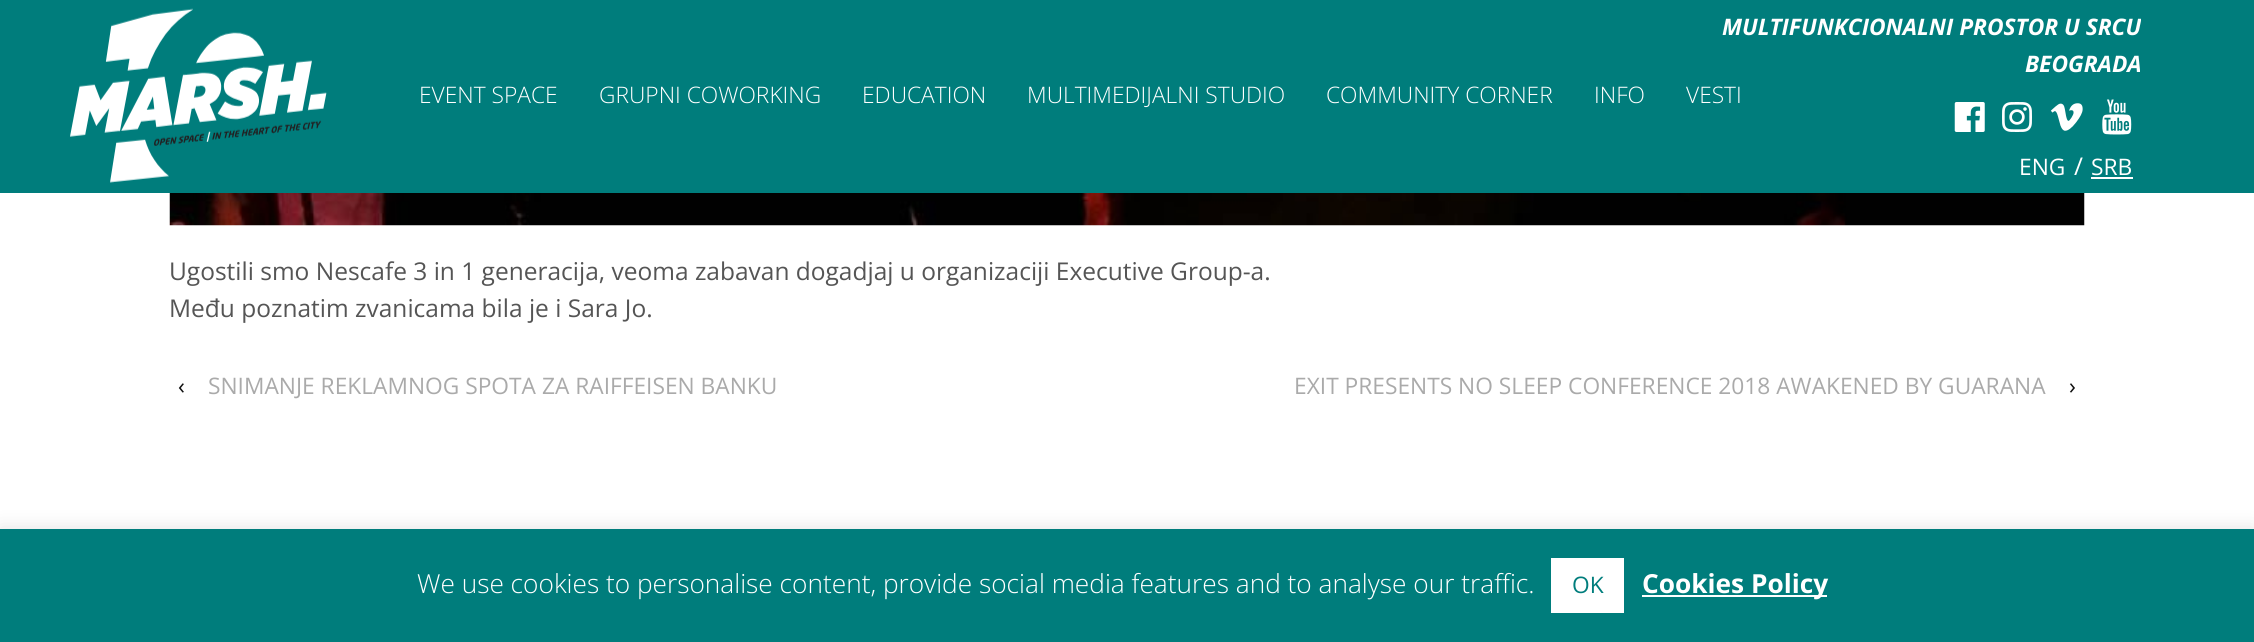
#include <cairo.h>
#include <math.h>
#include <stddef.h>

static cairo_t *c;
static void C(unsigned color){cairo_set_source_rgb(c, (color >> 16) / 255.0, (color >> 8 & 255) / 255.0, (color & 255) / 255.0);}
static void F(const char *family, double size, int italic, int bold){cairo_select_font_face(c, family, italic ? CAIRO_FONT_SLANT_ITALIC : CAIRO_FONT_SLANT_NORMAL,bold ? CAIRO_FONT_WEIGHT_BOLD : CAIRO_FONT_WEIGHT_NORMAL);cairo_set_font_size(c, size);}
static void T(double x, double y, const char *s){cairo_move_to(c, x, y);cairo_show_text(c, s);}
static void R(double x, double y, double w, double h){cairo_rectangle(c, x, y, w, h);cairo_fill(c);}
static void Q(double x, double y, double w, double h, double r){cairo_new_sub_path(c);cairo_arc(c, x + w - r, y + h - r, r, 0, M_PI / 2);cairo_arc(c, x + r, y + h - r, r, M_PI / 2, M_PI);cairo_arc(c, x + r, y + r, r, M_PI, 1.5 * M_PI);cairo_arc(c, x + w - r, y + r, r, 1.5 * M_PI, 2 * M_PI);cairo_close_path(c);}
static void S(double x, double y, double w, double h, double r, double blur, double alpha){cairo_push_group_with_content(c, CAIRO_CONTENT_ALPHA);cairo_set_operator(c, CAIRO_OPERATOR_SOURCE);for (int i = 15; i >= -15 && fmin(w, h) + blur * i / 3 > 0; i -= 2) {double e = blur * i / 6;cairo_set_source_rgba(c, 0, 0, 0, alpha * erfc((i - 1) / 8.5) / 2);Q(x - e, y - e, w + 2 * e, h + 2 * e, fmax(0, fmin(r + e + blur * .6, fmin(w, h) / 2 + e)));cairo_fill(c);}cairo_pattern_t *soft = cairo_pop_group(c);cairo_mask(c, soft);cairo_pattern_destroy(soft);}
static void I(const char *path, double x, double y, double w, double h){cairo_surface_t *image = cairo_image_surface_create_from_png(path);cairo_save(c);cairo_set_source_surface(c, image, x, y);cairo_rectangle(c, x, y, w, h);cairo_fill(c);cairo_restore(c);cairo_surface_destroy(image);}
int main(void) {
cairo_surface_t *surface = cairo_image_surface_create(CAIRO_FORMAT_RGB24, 2254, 642);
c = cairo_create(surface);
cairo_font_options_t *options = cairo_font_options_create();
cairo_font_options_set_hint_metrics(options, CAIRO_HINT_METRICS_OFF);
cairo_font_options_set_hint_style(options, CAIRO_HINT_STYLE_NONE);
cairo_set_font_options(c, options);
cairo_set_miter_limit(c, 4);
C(0xffffff);
cairo_paint(c);
C(0x007d7c);
R(0,0,2254,193);
I("1.png",70,8,257,175);
F("Open Sans Light",22.75,0,0);
C(0xffffff);
T(419,103,"EVENT SPACE");
T(599,103,"GRUPNI COWORKING");
T(862,103,"EDUCATION");
T(1027,103,"MULTIMEDIJALNI STUDIO");
T(1326,103,"COMMUNITY CORNER");
T(1594,103,"INFO");
T(1686,103,"VESTI");
F("Open Sans",22.75,1,1);
T(1722,35,"MULTIFUNKCIONALNI PROSTOR U SRCU");
T(2025,72,"BEOGRADA");
I("2.png",1954,102,31,30);
I("3.png",2002,102,30,30);
I("4.png",2050,103,33,28);
I("5.png",2102,99,30,36);
F("Open Sans",22.75,0,0);
T(2019,175,"ENG");
F("Open Sans",24.5,0,0);
T(2074,175,"/");
F("Open Sans",22.75,0,0);
T(2091,175,"SRB");
R(2091,177,42,2);
I("6.png",169,193,1916,33);
F("Open Sans",24.5,0,0);
C(0x555555);
T(169,280,"Ugostili smo Nescafe 3 in 1 generacija, veoma zabavan dogadjaj u organizaciji Executive Group-a.");
T(169,317,"Među poznatim zvanicama bila je i Sara Jo.");
F("Open Sans",22.75,0,0);
C(0x111111);
T(178,394,"‹");
C(0xaaaaaa);
T(208,394,"SNIMANJE REKLAMNOG SPOTA ZA RAIFFEISEN BANKU");
T(1294,394,"EXIT PRESENTS NO SLEEP CONFERENCE 2018 AWAKENED BY GUARANA");
C(0x111111);
T(2069,394,"›");
C(0xacabab);
S(0,527,2254,114,0,9,.3);
C(0x007d7c);
R(0,529,2254,113);
F("Open Sans Light",26.25,0,0);
C(0xffffff);
T(417,593,"We use cookies to personalise content, provide social media features and to analyse our traffic.");
R(1551,558,73,55);
F("Open Sans",22.75,0,0);
C(0x007d7c);
T(1572,593,"OK");
C(0xffffff);
R(1642,595,185,2);
F("Open Sans",26.25,0,1);
T(1642,593,"Cookies Policy");
cairo_surface_write_to_png(surface, "o.png");
cairo_font_options_destroy(options);
cairo_destroy(c);
cairo_surface_destroy(surface);
return 0;
}
